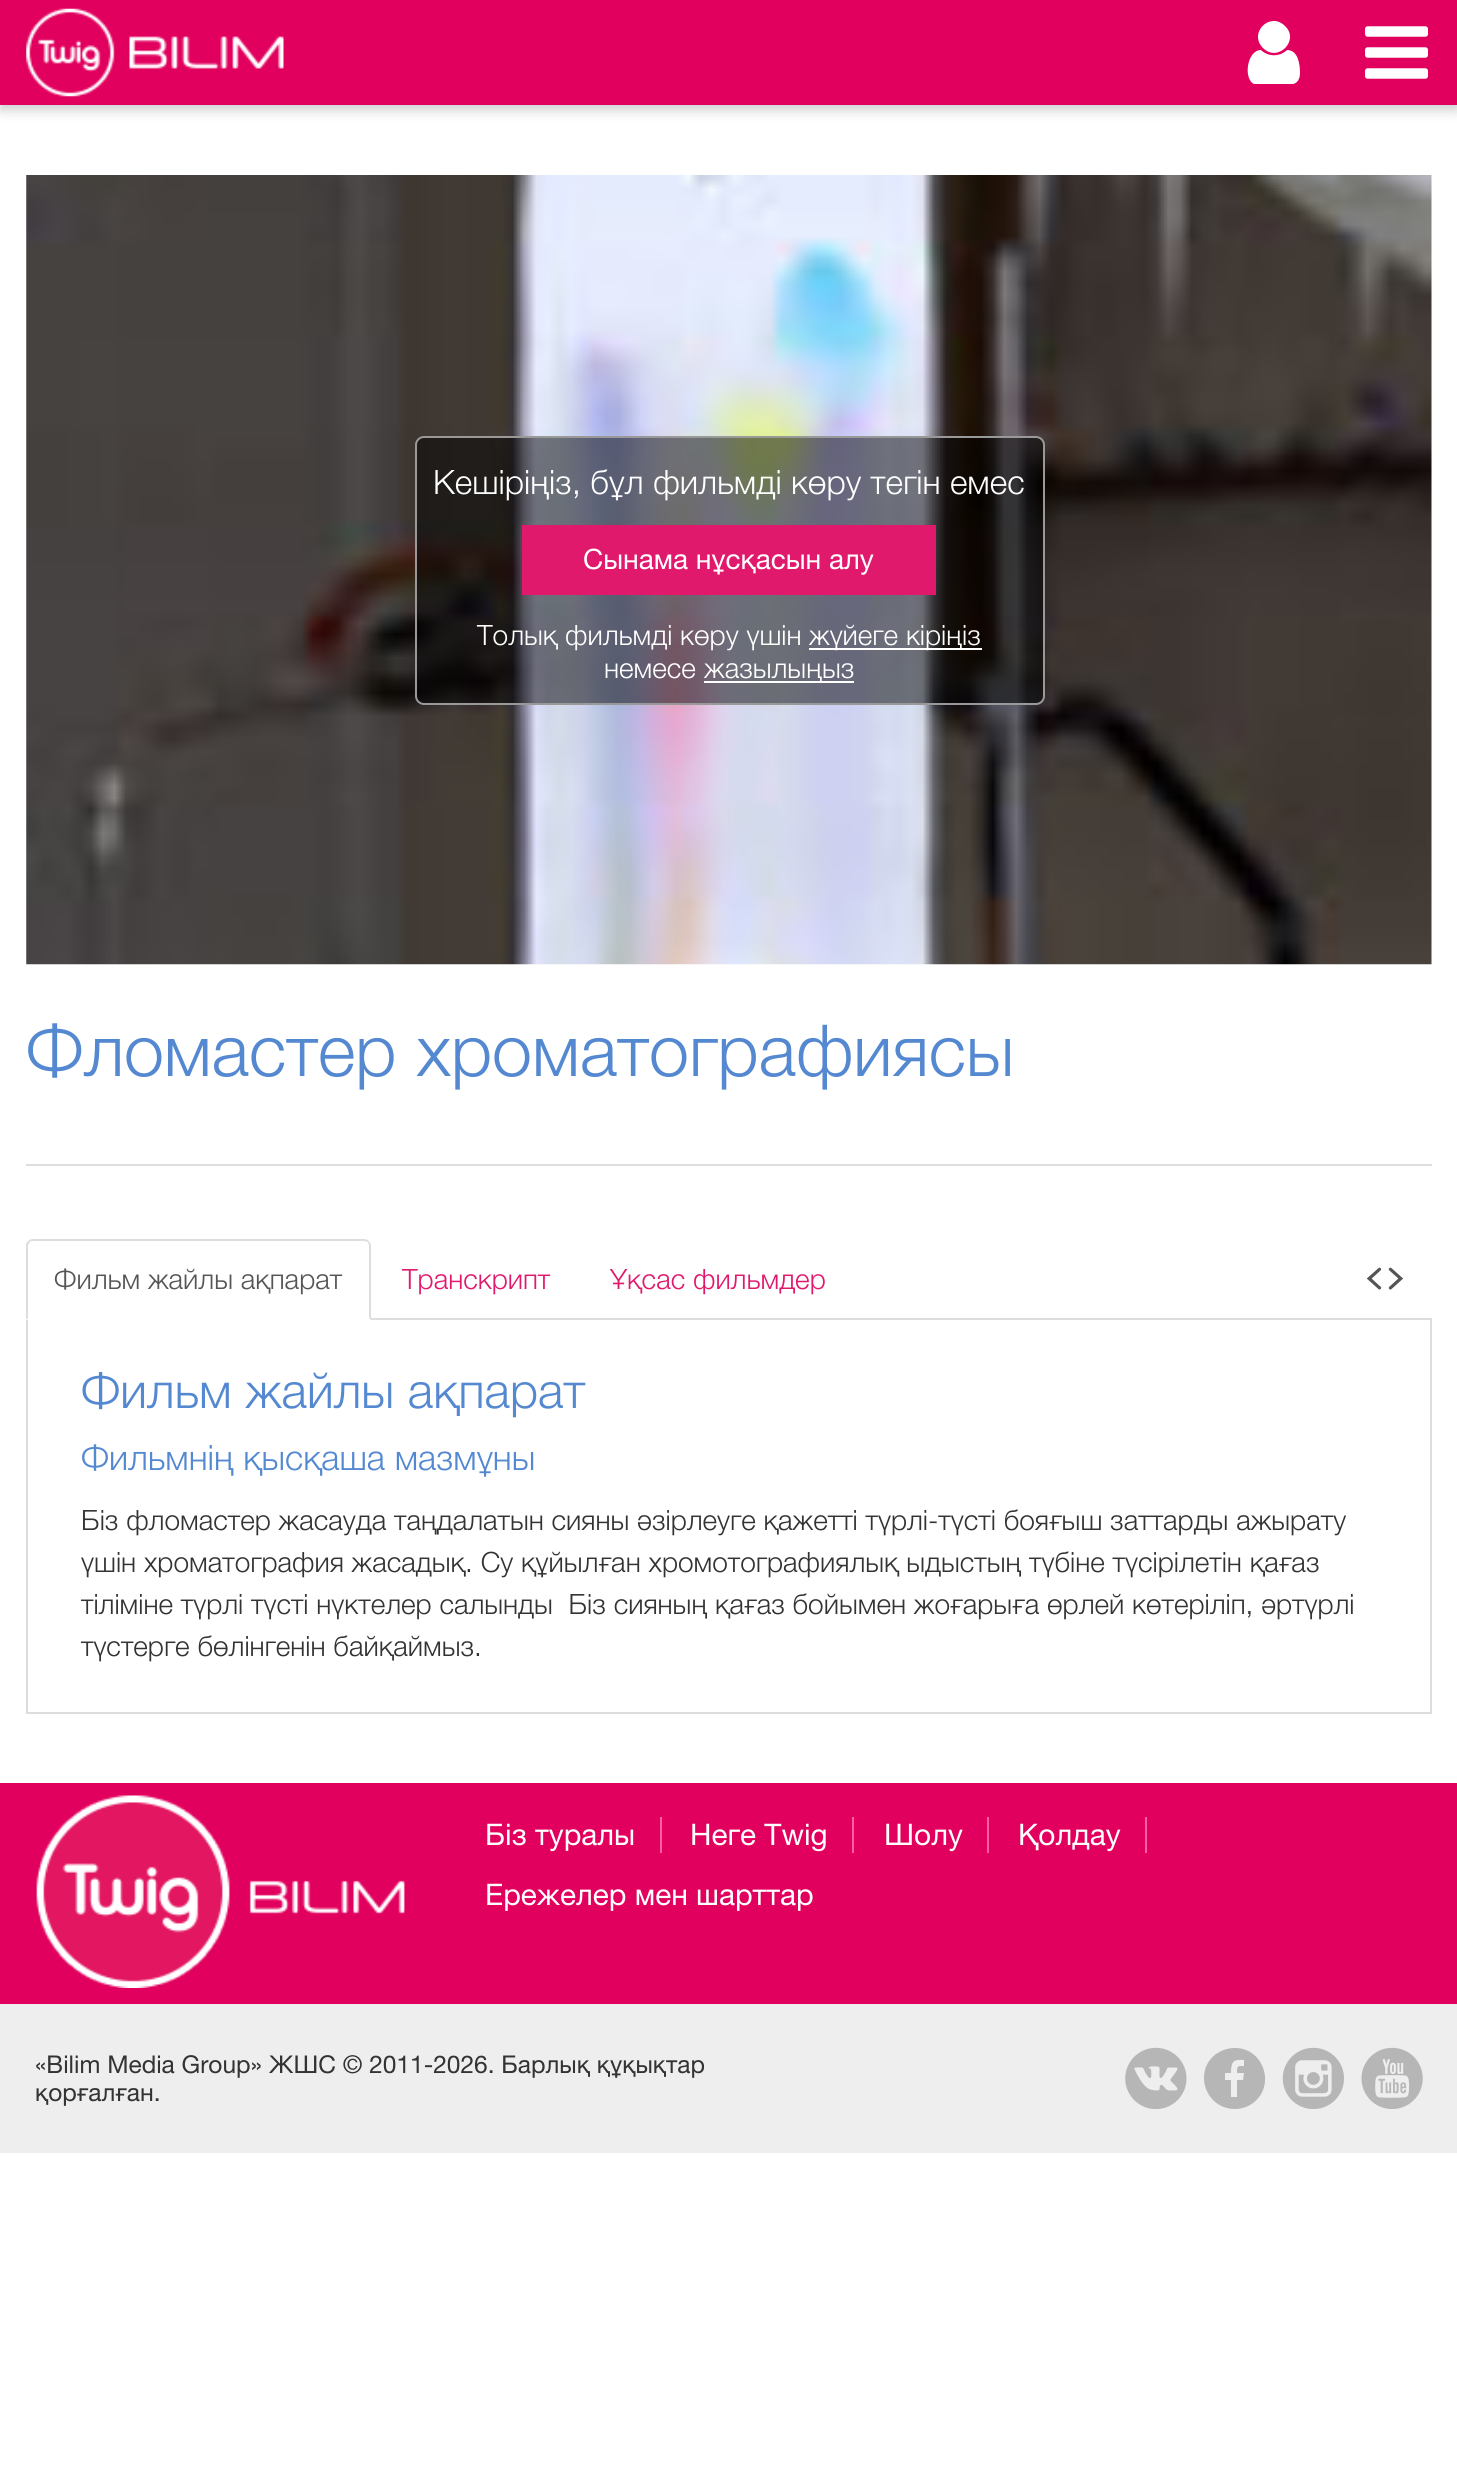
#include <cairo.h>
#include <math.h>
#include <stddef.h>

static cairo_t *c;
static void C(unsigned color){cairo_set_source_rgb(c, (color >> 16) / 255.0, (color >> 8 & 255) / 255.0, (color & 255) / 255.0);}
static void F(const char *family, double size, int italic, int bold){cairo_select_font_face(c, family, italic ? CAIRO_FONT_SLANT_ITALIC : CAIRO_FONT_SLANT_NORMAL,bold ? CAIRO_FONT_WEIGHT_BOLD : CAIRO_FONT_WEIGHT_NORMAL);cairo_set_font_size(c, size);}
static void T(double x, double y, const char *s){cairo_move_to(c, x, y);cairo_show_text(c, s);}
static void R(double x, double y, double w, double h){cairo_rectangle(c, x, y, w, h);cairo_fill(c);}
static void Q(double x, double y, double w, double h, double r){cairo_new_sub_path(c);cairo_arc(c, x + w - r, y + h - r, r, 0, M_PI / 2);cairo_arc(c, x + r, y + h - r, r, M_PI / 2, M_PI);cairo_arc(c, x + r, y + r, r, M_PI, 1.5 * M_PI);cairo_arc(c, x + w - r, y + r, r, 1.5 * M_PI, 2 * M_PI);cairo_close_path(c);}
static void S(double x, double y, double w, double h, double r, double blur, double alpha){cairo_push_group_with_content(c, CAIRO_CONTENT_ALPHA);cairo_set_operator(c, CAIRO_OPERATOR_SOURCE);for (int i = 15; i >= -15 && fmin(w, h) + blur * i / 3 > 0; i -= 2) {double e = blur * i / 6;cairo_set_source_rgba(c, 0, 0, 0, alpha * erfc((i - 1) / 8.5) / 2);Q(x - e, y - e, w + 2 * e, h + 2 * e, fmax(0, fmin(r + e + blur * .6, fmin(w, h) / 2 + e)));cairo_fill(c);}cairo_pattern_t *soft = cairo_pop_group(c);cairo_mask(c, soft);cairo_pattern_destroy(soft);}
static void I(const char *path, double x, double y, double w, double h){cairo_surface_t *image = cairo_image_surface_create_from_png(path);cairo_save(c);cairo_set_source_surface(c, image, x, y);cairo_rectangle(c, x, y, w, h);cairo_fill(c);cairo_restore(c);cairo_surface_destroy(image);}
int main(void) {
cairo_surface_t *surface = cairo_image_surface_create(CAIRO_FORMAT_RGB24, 1457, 2478);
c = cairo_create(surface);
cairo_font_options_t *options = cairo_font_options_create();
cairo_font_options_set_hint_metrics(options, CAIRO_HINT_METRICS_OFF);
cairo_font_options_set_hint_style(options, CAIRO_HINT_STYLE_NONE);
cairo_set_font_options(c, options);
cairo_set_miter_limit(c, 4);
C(0xffffff);
cairo_paint(c);
C(0x000000);
S(0,5,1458,105,0,6,.2);
C(0xe2005e);
R(0,0,1457,105);
I("1.png",26,8,258,89);
C(0xffffff);
cairo_new_path(c);
cairo_move_to(c,1300,73);
cairo_curve_to(c,1300,78,1298,83,1293,84);
cairo_line_to(c,1262,84);
cairo_line_to(c,1254,84);
cairo_curve_to(c,1243,79,1247,50,1261,50);
cairo_curve_to(c,1268,57,1280,57,1287,50);
cairo_curve_to(c,1298,50,1300,64,1300,73);
cairo_close_path(c);
cairo_move_to(c,1285,26);
cairo_curve_to(c,1300,40,1278,63,1263,48);
cairo_curve_to(c,1248,33,1270,11,1285,26);
cairo_close_path(c);
cairo_fill(c);
I("2.png",1365,26,63,53);
I("3.png",26,175,1406,790);
cairo_set_source_rgba(c,0,0,0,0.5);
Q(416,437,628,267,8);
cairo_fill_preserve(c);
C(0x999999);
cairo_stroke(c);
F("Helvetica Neue Light",33.6,0,0);
C(0xffffff);
T(433,494,"Кешіріңіз, бұл фильмді көру тегін емес");
C(0xe1196d);
R(522,525,414,70);
F("Helvetica Neue",28,0,0);
C(0xffffff);
T(583,569,"Сынама нұсқасын алу");
F("Helvetica Neue Light",28,0,0);
T(477,645,"Толық фильмді көру үшін");
R(809,648,173,2);
T(809,645,"жүйеге кіріңіз");
T(604,678,"немесе");
R(704,681,150,2);
T(704,678,"жазылыңыз");
C(0xdddddd);
R(26,1164,1406,2);
F("Helvetica Neue Light",71.75,0,0);
C(0x5488d0);
T(26,1076,"Фломастер хроматографиясы");
C(0xdddddd);
R(371,1318,1061,2);
cairo_new_path(c);
cairo_move_to(c,33,1239);
cairo_curve_to(c,31,1239,29,1240,28,1241);
cairo_line_to(c,30,1242);
cairo_curve_to(c,30,1241,32,1241,33,1241);
cairo_line_to(c,364,1241);
cairo_curve_to(c,366,1241,367,1242,368,1242);
cairo_line_to(c,369,1241);
cairo_curve_to(c,368,1240,366,1239,364,1239);
cairo_close_path(c);
cairo_fill(c);
cairo_new_path(c);
cairo_move_to(c,371,1320);
cairo_line_to(c,371,1246);
cairo_curve_to(c,371,1244,370,1242,369,1241);
cairo_line_to(c,368,1242);
cairo_line_to(c,369,1245);
cairo_line_to(c,369,1318);
cairo_close_path(c);
cairo_fill(c);
cairo_new_path(c);
cairo_move_to(c,26,1320);
cairo_line_to(c,26,1244);
cairo_line_to(c,28,1241);
cairo_line_to(c,30,1242);
cairo_line_to(c,28,1245);
cairo_line_to(c,28,1318);
cairo_close_path(c);
cairo_fill(c);
F("Helvetica Neue Light",28,0,0);
C(0x555555);
T(54,1289,"Фильм жайлы ақпарат");
C(0xe1196d);
T(402,1289,"Транскрипт");
T(610,1289,"Ұқсас фильмдер");
I("4.png",1366,1267,37,23);
C(0xdddddd);
R(1430,1320,2,393);
R(26,1712,1406,2);
R(26,1320,2,393);
F("Helvetica Neue Light",49,0,0);
C(0x5488d0);
T(81,1408,"Фильм жайлы ақпарат");
F("Helvetica Neue Light",35,0,0);
T(81,1470,"Фильмнің қысқаша мазмұны");
F("Helvetica Neue Light",28,0,0);
C(0x333333);
T(81,1530,"Біз фломастер жасауда таңдалатын сияны әзірлеуге қажетті түрлі-түсті бояғыш заттарды ажырату");
T(81,1572,"үшін хроматография жасадық. Су құйылған хромотографиялық ыдыстың түбіне түсірілетін қағаз");
T(81,1614,"тіліміне түрлі түсті нүктелер салынды  Біз сияның қағаз бойымен жоғарыға өрлей көтеріліп, әртүрлі");
T(81,1656,"түстерге бөлінгенін байқаймыз.");
C(0xe2005e);
R(0,1783,1457,221);
I("5.png",36,1795,369,193);
C(0xff5fa2);
R(660,1817,2,36);
F("Helvetica Neue",29.75,0,0);
C(0xffffff);
T(485,1845,"Біз туралы");
C(0xff5fa2);
R(852,1817,2,36);
C(0xffffff);
T(690,1845,"Неге Twig");
C(0xff5fa2);
R(987,1817,2,36);
C(0xffffff);
T(884,1845,"Шолу");
C(0xff5fa2);
R(1145,1817,2,36);
C(0xffffff);
T(1018,1845,"Қолдау");
T(485,1905,"Ережелер мен шарттар");
C(0xeeeeee);
R(0,2004,1457,149);
F("Helvetica Neue",24.5,0,0);
C(0x333333);
T(35,2073,"«Bilim Media Group» ЖШС © 2011-2026. Барлық құқықтар");
T(35,2101,"қорғалған.");
I("6.png",1125,2047,62,62);
C(0xb6b6b6);
cairo_new_path(c);
cairo_move_to(c,1235,2048);
cairo_curve_to(c,1264,2048,1276,2086,1253,2103);
cairo_curve_to(c,1248,2107,1241,2109,1235,2109);
cairo_curve_to(c,1205,2109,1193,2071,1216,2054);
cairo_curve_to(c,1222,2050,1228,2048,1235,2048);
cairo_close_path(c);
cairo_move_to(c,1237,2097);
cairo_line_to(c,1237,2080);
cairo_line_to(c,1243,2080);
cairo_line_to(c,1244,2073);
cairo_line_to(c,1237,2073);
cairo_curve_to(c,1237,2066,1237,2066,1244,2066);
cairo_line_to(c,1244,2060);
cairo_curve_to(c,1233,2059,1231,2062,1231,2073);
cairo_line_to(c,1225,2073);
cairo_line_to(c,1225,2080);
cairo_line_to(c,1231,2080);
cairo_line_to(c,1231,2097);
cairo_close_path(c);
cairo_fill(c);
I("7.png",1282,2047,62,62);
I("8.png",1361,2047,62,62);
cairo_surface_write_to_png(surface, "o.png");
cairo_font_options_destroy(options);
cairo_destroy(c);
cairo_surface_destroy(surface);
return 0;
}
